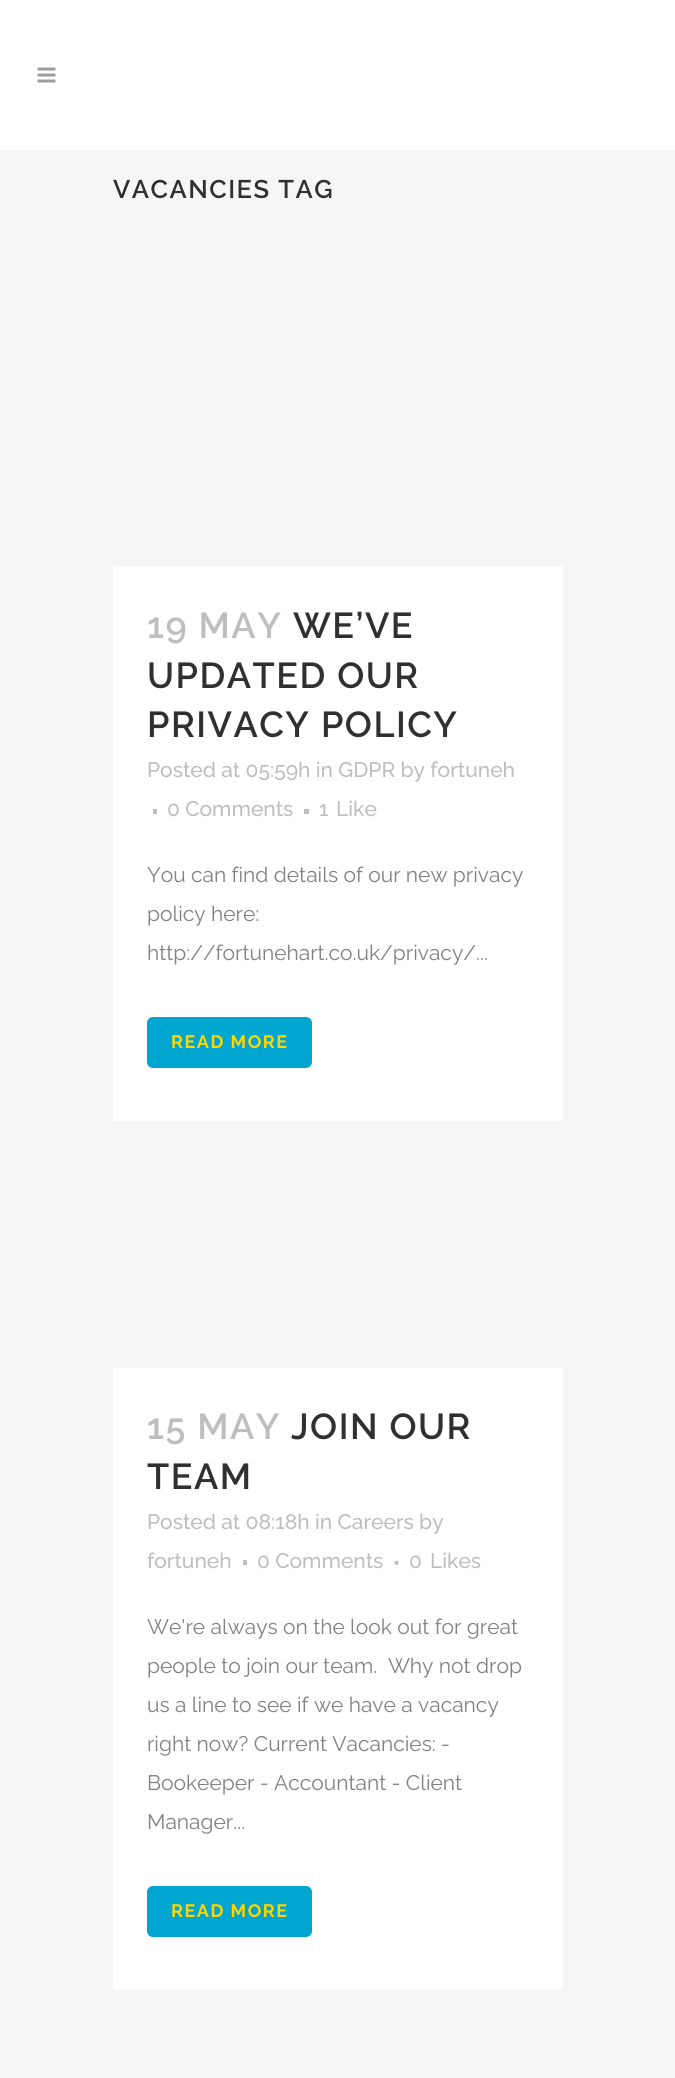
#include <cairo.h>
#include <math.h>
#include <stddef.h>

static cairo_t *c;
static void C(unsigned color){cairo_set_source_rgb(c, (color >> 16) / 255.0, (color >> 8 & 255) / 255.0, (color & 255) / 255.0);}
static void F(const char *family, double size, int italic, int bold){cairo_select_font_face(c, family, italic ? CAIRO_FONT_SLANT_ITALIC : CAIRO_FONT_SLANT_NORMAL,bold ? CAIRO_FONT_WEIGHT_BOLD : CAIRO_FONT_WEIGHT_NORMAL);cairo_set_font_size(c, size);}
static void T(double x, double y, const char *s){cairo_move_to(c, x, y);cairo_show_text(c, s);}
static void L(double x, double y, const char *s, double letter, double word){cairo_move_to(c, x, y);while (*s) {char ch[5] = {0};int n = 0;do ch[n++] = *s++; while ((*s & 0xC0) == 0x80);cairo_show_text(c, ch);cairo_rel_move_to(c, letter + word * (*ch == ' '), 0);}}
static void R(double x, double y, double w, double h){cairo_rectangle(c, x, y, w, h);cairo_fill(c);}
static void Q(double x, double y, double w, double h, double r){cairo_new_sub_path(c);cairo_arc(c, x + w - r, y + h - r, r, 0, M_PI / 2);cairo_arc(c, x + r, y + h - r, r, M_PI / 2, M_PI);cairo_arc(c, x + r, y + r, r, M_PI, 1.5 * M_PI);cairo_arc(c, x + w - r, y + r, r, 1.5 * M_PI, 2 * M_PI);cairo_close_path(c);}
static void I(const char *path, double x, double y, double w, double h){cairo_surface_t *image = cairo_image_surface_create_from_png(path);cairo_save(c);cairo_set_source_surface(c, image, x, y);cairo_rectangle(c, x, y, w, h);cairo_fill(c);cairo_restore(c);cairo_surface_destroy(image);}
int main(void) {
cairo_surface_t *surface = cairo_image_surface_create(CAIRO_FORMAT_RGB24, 675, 2078);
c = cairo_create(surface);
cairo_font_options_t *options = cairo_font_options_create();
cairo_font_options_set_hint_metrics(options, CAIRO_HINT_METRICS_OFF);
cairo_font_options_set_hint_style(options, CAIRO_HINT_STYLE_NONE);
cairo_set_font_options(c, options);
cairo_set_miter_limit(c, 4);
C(0xf6f6f6);
cairo_paint(c);
C(0xffffff);
R(0,0,675,150);
I("1.png",37,67,19,16);
F("Raleway SemiBold",25.5,0,0);
C(0x303030);
L(113,198,"VACANCIES TAG",1.5,0);
C(0xffffff);
R(113,566,450,555);
F("Raleway SemiBold",36,0,0);
C(0xbebebe);
L(147,638,"19 MAY",1.5,0);
C(0x303030);
L(293,638,"WE’VE",1.5,0);
L(147,688,"UPDATED OUR",1.5,0);
L(147,737,"PRIVACY POLICY",1.5,0);
F("Raleway Medium",21,0,0);
C(0xbebebe);
T(147,777,"Posted at 05:59h in GDPR by fortuneh");
R(153,809,4,5);
T(167,816,"0 Comments");
R(304,809,5,5);
T(319,816,"1");
T(336,816,"Like");
F("Raleway",21,0,0);
C(0x818181);
T(147,882,"You can find details of our new privacy");
T(147,921,"policy here:");
T(147,960,"http://fortunehart.co.uk/privacy/...");
C(0x00a6cf);
Q(148.5,1018.5,162,48,4.5);
cairo_fill_preserve(c);
cairo_set_line_width(c,3);
cairo_stroke(c);
F("Raleway",18,0,1);
C(0xffd500);
L(171,1048,"READ MORE",1.5,0);
C(0xffffff);
R(113,1368,450,621);
F("Raleway SemiBold",36,0,0);
C(0xbebebe);
L(147,1439,"15 MAY",1.5,0);
C(0x303030);
L(291,1439,"JOIN OUR",1.5,0);
L(147,1489,"TEAM",1.5,0);
F("Raleway Medium",21,0,0);
C(0xbebebe);
T(147,1529,"Posted at 08:18h in Careers by");
T(147,1568,"fortuneh");
R(243,1560,4,5);
T(257,1568,"0 Comments");
I("2.png",394,1560,5,5);
T(409,1568,"0");
T(430,1568,"Likes");
F("Raleway",21,0,0);
C(0x818181);
T(147,1634,"We're always on the look out for great");
T(147,1673,"people to join our team.  Why not drop");
T(147,1712,"us a line to see if we have a vacancy");
T(147,1751,"right now? Current Vacancies: -");
T(147,1790,"Bookeeper - Accountant - Client");
T(147,1829,"Manager...");
C(0x00a6cf);
Q(148.5,1887.5,162,48,4.5);
cairo_fill_preserve(c);
cairo_stroke(c);
F("Raleway",18,0,1);
C(0xffd500);
L(171,1917,"READ MORE",1.5,0);
cairo_surface_write_to_png(surface, "o.png");
cairo_font_options_destroy(options);
cairo_destroy(c);
cairo_surface_destroy(surface);
return 0;
}
